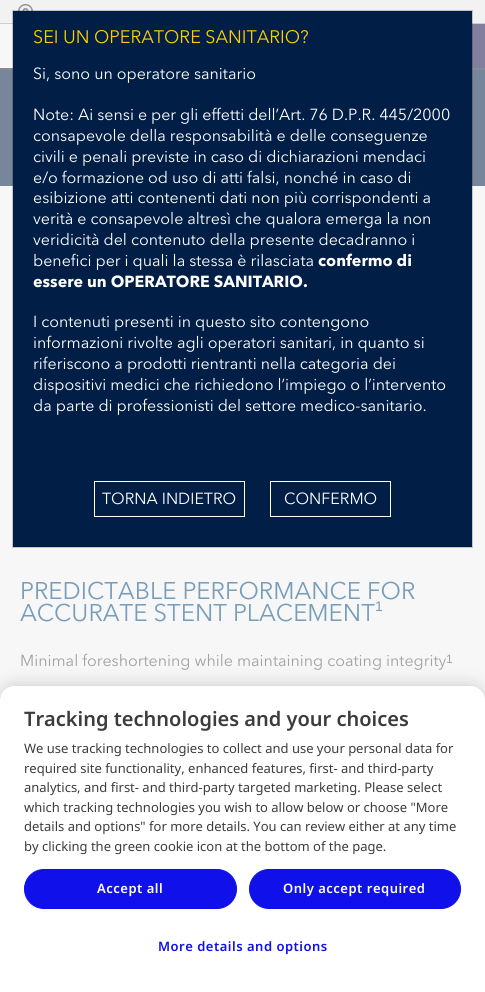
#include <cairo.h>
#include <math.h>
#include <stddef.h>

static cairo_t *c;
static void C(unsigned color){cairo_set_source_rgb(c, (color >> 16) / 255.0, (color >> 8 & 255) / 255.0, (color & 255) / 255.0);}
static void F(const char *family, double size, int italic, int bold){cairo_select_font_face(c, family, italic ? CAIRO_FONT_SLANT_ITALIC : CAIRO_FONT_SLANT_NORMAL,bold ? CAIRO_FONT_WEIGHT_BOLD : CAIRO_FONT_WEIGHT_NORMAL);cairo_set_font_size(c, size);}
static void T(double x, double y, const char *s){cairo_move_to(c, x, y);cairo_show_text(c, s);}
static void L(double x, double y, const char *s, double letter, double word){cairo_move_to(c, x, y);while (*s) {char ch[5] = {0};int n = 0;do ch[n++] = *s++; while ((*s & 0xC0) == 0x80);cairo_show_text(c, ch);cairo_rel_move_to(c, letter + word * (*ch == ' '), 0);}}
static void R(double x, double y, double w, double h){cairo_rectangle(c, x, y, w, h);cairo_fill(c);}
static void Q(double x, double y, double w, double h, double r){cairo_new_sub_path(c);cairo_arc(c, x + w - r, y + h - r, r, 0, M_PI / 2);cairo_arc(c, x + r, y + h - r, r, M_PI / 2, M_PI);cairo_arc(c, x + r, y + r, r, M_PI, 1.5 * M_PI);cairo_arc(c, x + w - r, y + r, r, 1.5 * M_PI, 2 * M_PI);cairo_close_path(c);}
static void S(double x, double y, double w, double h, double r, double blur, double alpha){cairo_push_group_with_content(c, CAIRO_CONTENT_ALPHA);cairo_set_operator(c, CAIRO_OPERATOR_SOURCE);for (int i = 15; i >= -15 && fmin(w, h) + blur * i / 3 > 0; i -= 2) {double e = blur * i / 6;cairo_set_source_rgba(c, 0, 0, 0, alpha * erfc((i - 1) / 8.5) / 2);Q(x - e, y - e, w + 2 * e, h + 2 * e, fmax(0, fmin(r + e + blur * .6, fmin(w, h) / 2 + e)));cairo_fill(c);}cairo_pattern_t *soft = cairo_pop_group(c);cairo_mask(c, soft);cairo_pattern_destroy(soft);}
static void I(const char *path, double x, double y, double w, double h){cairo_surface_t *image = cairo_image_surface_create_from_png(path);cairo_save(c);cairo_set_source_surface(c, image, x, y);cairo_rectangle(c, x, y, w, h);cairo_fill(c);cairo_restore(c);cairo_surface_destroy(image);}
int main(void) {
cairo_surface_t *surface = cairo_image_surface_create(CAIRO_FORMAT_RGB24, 485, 992);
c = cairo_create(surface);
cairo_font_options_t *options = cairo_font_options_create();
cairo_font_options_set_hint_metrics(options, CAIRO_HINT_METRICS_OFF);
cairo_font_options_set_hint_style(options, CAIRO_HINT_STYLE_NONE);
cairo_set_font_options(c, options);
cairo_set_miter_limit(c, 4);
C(0xf7f7f7);
cairo_paint(c);
C(0x77869a);
R(0,68,485,118);
cairo_save(c);
cairo_set_fill_rule(c,CAIRO_FILL_RULE_EVEN_ODD);
cairo_new_path(c);
cairo_move_to(c,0,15);
cairo_line_to(c,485,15);
cairo_line_to(c,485,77);
cairo_line_to(c,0,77);
cairo_close_path(c);
cairo_move_to(c,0,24);
cairo_line_to(c,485,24);
cairo_line_to(c,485,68);
cairo_line_to(c,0,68);
cairo_close_path(c);
cairo_clip(c);
C(0x959595);
S(0,24,485,44,0,2.5,1);
cairo_restore(c);
C(0xf2f2f2);
R(0,0,485,23);
C(0x001e46);
R(13,11,459,536);
C(0x817f9d);
R(472,24,13,44);
I("1.png",18,3,15,8);
cairo_rectangle(c,12.5,10.5,460,537);
cairo_set_source_rgba(c,0,0,0,0.2);
cairo_set_line_width(c,1);
cairo_stroke(c);
F("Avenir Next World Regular",18,0,0);
C(0xffce00);
T(33,43,"SEI UN OPERATORE SANITARIO?");
F("Avenir Next World Regular",16,0,0);
C(0xffffff);
T(33,79,"Si, sono un operatore sanitario");
T(33,120,"Note: Ai sensi e per gli effetti dell’Art. 76 D.P.R. 445/2000");
T(33,141,"consapevole della responsabilità e delle conseguenze");
T(33,162,"civili e penali previste in caso di dichiarazioni mendaci");
T(33,183,"e/o formazione od uso di atti falsi, nonché in caso di");
T(33,203,"esibizione atti contenenti dati non più corrispondenti a");
T(33,224,"verità e consapevole altresì che qualora emerga la non");
T(33,245,"veridicità del contenuto della presente decadranno i");
T(33,266,"benefici per i quali la stessa è rilasciata");
F("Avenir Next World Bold",16,0,1);
T(318,266,"confermo di");
T(33,287,"essere un OPERATORE SANITARIO.");
F("Avenir Next World Regular",16,0,0);
T(33,327,"I contenuti presenti in questo sito contengono");
T(33,348,"informazioni rivolte agli operatori sanitari, in quanto si");
T(33,369,"riferiscono a prodotti rientranti nella categoria dei");
T(33,390,"dispositivi medici che richiedono l’impiego o l’intervento");
T(33,411,"da parte di professionisti del settore medico-sanitario.");
cairo_rectangle(c,94.5,481.5,150,35);
cairo_stroke(c);
T(102,504,"TORNA INDIETRO");
cairo_rectangle(c,270.5,481.5,120,35);
cairo_stroke(c);
T(284,504,"CONFERMO");
F("Avenir Next World Regular",24,0,0);
C(0x779dbb);
T(20,599,"PREDICTABLE PERFORMANCE FOR");
T(20,621,"ACCURATE STENT PLACEMENT");
F("Liberation Sans",14,0,0);
T(375,611,"1");
F("Avenir Next World Regular",16,0,0);
C(0xa1a2a4);
T(20,666,"Minimal foreshortening while maintaining coating integrity");
F("Liberation Sans",12,0,0);
T(446,663,"1");
C(0x000000);
S(0,686,485,306,15,9,.2);
C(0xffffff);
cairo_new_path(c);
cairo_move_to(c,15,686);
cairo_line_to(c,470,686);
cairo_curve_to(c,478.5,686,485,692.5,485,701);
cairo_line_to(c,485,992);
cairo_line_to(c,0,992);
cairo_line_to(c,0,701);
cairo_curve_to(c,0,692.5,6.5,686,15,686);
cairo_close_path(c);
cairo_fill(c);
F("Noto Sans SemiBold",20,0,0);
C(0x3c3c3c);
T(24,726,"Tracking technologies and your choices");
F("Noto Sans",13,0,0);
T(24,753,"We use tracking technologies to collect and use your personal data for");
T(24,773,"required site functionality, enhanced features, first- and third-party");
T(24,792,"analytics, and first- and third-party targeted marketing. Please select");
T(24,812,"which tracking technologies you wish to allow below or choose \"More");
T(24,831,"details and options\" for more details. You can review either at any time");
T(24,851,"by clicking the green cookie icon at the bottom of the page.");
C(0x1010eb);
Q(24.5,869.5,212,39,19.5);
cairo_fill_preserve(c);
cairo_stroke(c);
F("Noto Sans SemiBold",13,0,0);
C(0xffffff);
L(97,893,"Accept all",.5,0);
C(0x1010eb);
Q(249.5,869.5,211,39,19.5);
cairo_fill_preserve(c);
cairo_stroke(c);
C(0xffffff);
L(283,893,"Only accept required",.5,0);
C(0x1010eb);
L(158,951,"More details and options",.5,0);
cairo_surface_write_to_png(surface, "o.png");
cairo_font_options_destroy(options);
cairo_destroy(c);
cairo_surface_destroy(surface);
return 0;
}
